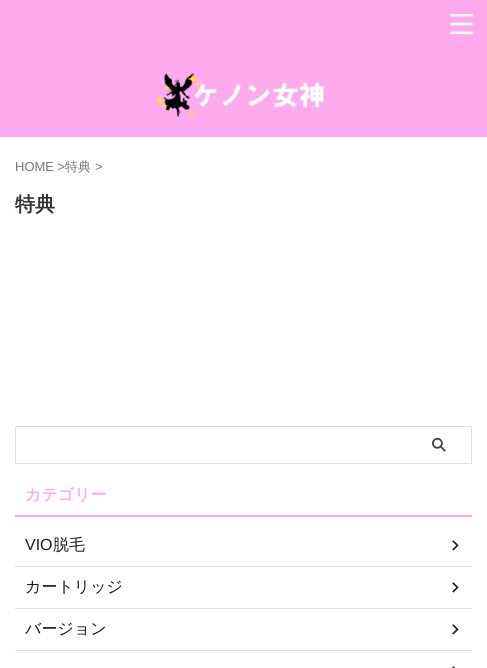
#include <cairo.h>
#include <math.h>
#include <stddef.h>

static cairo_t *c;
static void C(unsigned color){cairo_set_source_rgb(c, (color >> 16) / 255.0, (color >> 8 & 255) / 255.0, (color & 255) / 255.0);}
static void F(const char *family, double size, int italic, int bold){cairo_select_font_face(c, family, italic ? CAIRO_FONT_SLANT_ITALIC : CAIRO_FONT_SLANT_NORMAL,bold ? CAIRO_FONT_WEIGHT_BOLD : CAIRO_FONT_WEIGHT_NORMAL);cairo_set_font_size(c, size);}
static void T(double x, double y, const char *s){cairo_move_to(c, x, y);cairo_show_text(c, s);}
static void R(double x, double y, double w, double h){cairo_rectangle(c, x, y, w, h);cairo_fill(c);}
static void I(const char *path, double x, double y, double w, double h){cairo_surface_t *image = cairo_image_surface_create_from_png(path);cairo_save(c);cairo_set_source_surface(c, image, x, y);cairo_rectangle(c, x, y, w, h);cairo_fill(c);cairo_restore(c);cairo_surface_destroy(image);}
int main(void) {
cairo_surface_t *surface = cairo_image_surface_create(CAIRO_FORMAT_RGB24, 487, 668);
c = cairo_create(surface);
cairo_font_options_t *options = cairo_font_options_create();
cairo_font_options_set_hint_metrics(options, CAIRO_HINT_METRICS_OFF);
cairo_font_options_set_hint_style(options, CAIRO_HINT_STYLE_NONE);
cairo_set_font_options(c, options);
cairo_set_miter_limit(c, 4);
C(0xffffff);
cairo_paint(c);
C(0xffaaee);
R(0,0,487,137);
I("1.png",450,14,23,21);
I("2.png",157,73,167,44);
F("Liberation Sans",13,0,0);
C(0x777777);
T(15,171,"HOME >");
F("WenQuanYi Zen Hei Medium",13,0,0);
T(65,171,"特典");
F("Liberation Sans",13,0,0);
T(95,171,">");
F("WenQuanYi Zen Hei",20,0,1);
C(0x333333);
T(15,211,"特典");
cairo_rectangle(c,15.5,426.5,456,37);
C(0xe0e0e0);
cairo_set_line_width(c,1);
cairo_stroke(c);
I("3.png",432,437,14,15);
F("WenQuanYi Zen Hei",16,0,1);
C(0xffaaee);
T(25,500,"カテゴリー");
R(15,515,457,2);
C(0xe1e1e1);
R(15,566,457,1);
F("Liberation Sans",16,0,0);
C(0x1a1a1a);
T(25,550,"VIO");
F("WenQuanYi Zen Hei Medium",16,0,0);
T(53,550,"脱毛");
I("4.png",452,540,7,11);
C(0xe1e1e1);
R(15,608,457,1);
C(0x1a1a1a);
T(25,592,"カートリッジ");
I("4.png",452,582,7,11);
C(0xe1e1e1);
R(15,650,457,1);
C(0x1a1a1a);
T(25,634,"バージョン");
I("4.png",452,624,7,11);
I("5.png",452,666,3,2);
cairo_surface_write_to_png(surface, "o.png");
cairo_font_options_destroy(options);
cairo_destroy(c);
cairo_surface_destroy(surface);
return 0;
}
